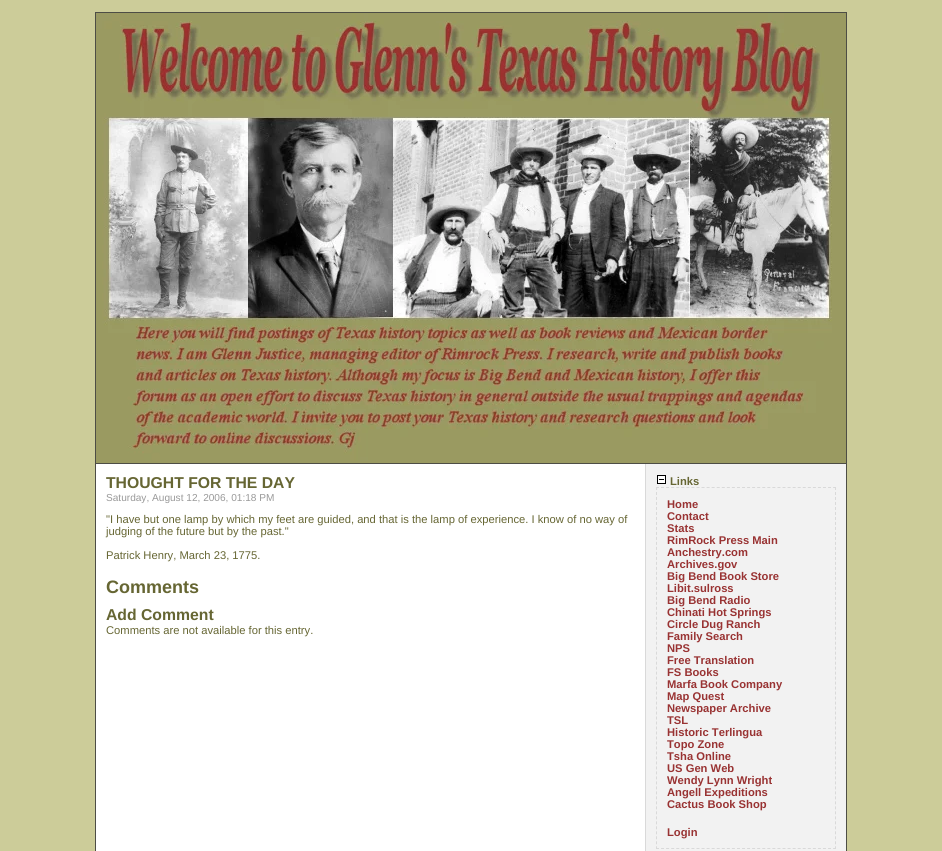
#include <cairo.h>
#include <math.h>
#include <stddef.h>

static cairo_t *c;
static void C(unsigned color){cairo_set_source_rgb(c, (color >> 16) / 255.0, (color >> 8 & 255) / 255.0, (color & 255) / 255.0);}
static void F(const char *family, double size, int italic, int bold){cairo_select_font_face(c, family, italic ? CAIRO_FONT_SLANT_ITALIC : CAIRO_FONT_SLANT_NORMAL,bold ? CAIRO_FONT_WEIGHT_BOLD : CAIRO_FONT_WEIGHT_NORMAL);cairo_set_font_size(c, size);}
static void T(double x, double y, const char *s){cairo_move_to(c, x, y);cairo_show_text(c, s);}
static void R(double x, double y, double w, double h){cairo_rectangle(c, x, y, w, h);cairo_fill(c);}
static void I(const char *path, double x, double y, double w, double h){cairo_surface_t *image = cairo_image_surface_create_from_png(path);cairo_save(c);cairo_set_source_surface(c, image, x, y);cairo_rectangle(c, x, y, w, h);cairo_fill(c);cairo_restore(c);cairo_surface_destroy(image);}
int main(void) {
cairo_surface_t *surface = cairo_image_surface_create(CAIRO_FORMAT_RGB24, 942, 851);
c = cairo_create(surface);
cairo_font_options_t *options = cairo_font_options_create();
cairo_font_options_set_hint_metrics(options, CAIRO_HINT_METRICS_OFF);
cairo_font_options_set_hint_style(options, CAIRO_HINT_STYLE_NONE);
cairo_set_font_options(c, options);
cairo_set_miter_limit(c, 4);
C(0xcccc99);
cairo_paint(c);
C(0xffffff);
R(96,464,549,387);
cairo_rectangle(c,95.5,12.5,751,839);
C(0x4d4d45);
cairo_set_line_width(c,1);
cairo_stroke(c);
I("1.png",96,13,750,450);
R(96,463,750,1);
F("Liberation Sans",15.75,0,1);
C(0x666633);
T(106,488,"THOUGHT FOR THE DAY");
F("Liberation Sans",10.1,0,0);
C(0x999999);
T(106,501,"Saturday, August 12, 2006, 01:18 PM");
F("Liberation Sans",11.2,0,0);
C(0x666633);
T(106,523,"\"I have but one lamp by which my feet are guided, and that is the lamp of experience. I know of no way of");
T(106,535,"judging of the future but by the past.\"");
T(106,559,"Patrick Henry, March 23, 1775.");
F("Liberation Sans",18,0,1);
T(106,593,"Comments");
F("Liberation Sans",15.75,0,1);
T(106,620,"Add Comment");
F("Liberation Sans",11.2,0,0);
T(106,634,"Comments are not available for this entry.");
C(0xf2f2f2);
R(646,464,200,387);
C(0xd9d9d9);
R(645,464,1,387);
I("2.png",657,475,9,9);
F("Liberation Sans",11.2,0,1);
C(0x666633);
T(670,485,"Links");
cairo_new_path(c);
cairo_move_to(c,656,487.5);
cairo_line_to(c,836,487.5);
C(0xd9d9d9);
cairo_set_dash(c,(double[]){3,2.06},2,0);
cairo_stroke(c);
cairo_new_path(c);
cairo_move_to(c,835.5,487);
cairo_line_to(c,835.5,849);
cairo_set_dash(c,(double[]){3,1.99},2,0);
cairo_stroke(c);
cairo_new_path(c);
cairo_move_to(c,656,848.5);
cairo_line_to(c,836,848.5);
cairo_set_dash(c,(double[]){3,2.06},2,0);
cairo_stroke(c);
cairo_new_path(c);
cairo_move_to(c,656.5,487);
cairo_line_to(c,656.5,849);
cairo_set_dash(c,(double[]){3,1.99},2,0);
cairo_stroke(c);
C(0x993333);
T(667,508,"Home");
T(667,520,"Contact");
T(667,532,"Stats");
T(667,544,"RimRock Press Main");
T(667,556,"Anchestry.com");
T(667,568,"Archives.gov");
T(667,580,"Big Bend Book Store");
T(667,592,"Libit.sulross");
T(667,604,"Big Bend Radio");
T(667,616,"Chinati Hot Springs");
T(667,628,"Circle Dug Ranch");
T(667,640,"Family Search");
T(667,652,"NPS");
T(667,664,"Free Translation");
T(667,676,"FS Books");
T(667,688,"Marfa Book Company");
T(667,700,"Map Quest");
T(667,712,"Newspaper Archive");
T(667,724,"TSL");
T(667,736,"Historic Terlingua");
T(667,748,"Topo Zone");
T(667,760,"Tsha Online");
T(667,772,"US Gen Web");
T(667,784,"Wendy Lynn Wright");
T(667,796,"Angell Expeditions");
T(667,808,"Cactus Book Shop");
T(667,836,"Login");
cairo_surface_write_to_png(surface, "o.png");
cairo_font_options_destroy(options);
cairo_destroy(c);
cairo_surface_destroy(surface);
return 0;
}
